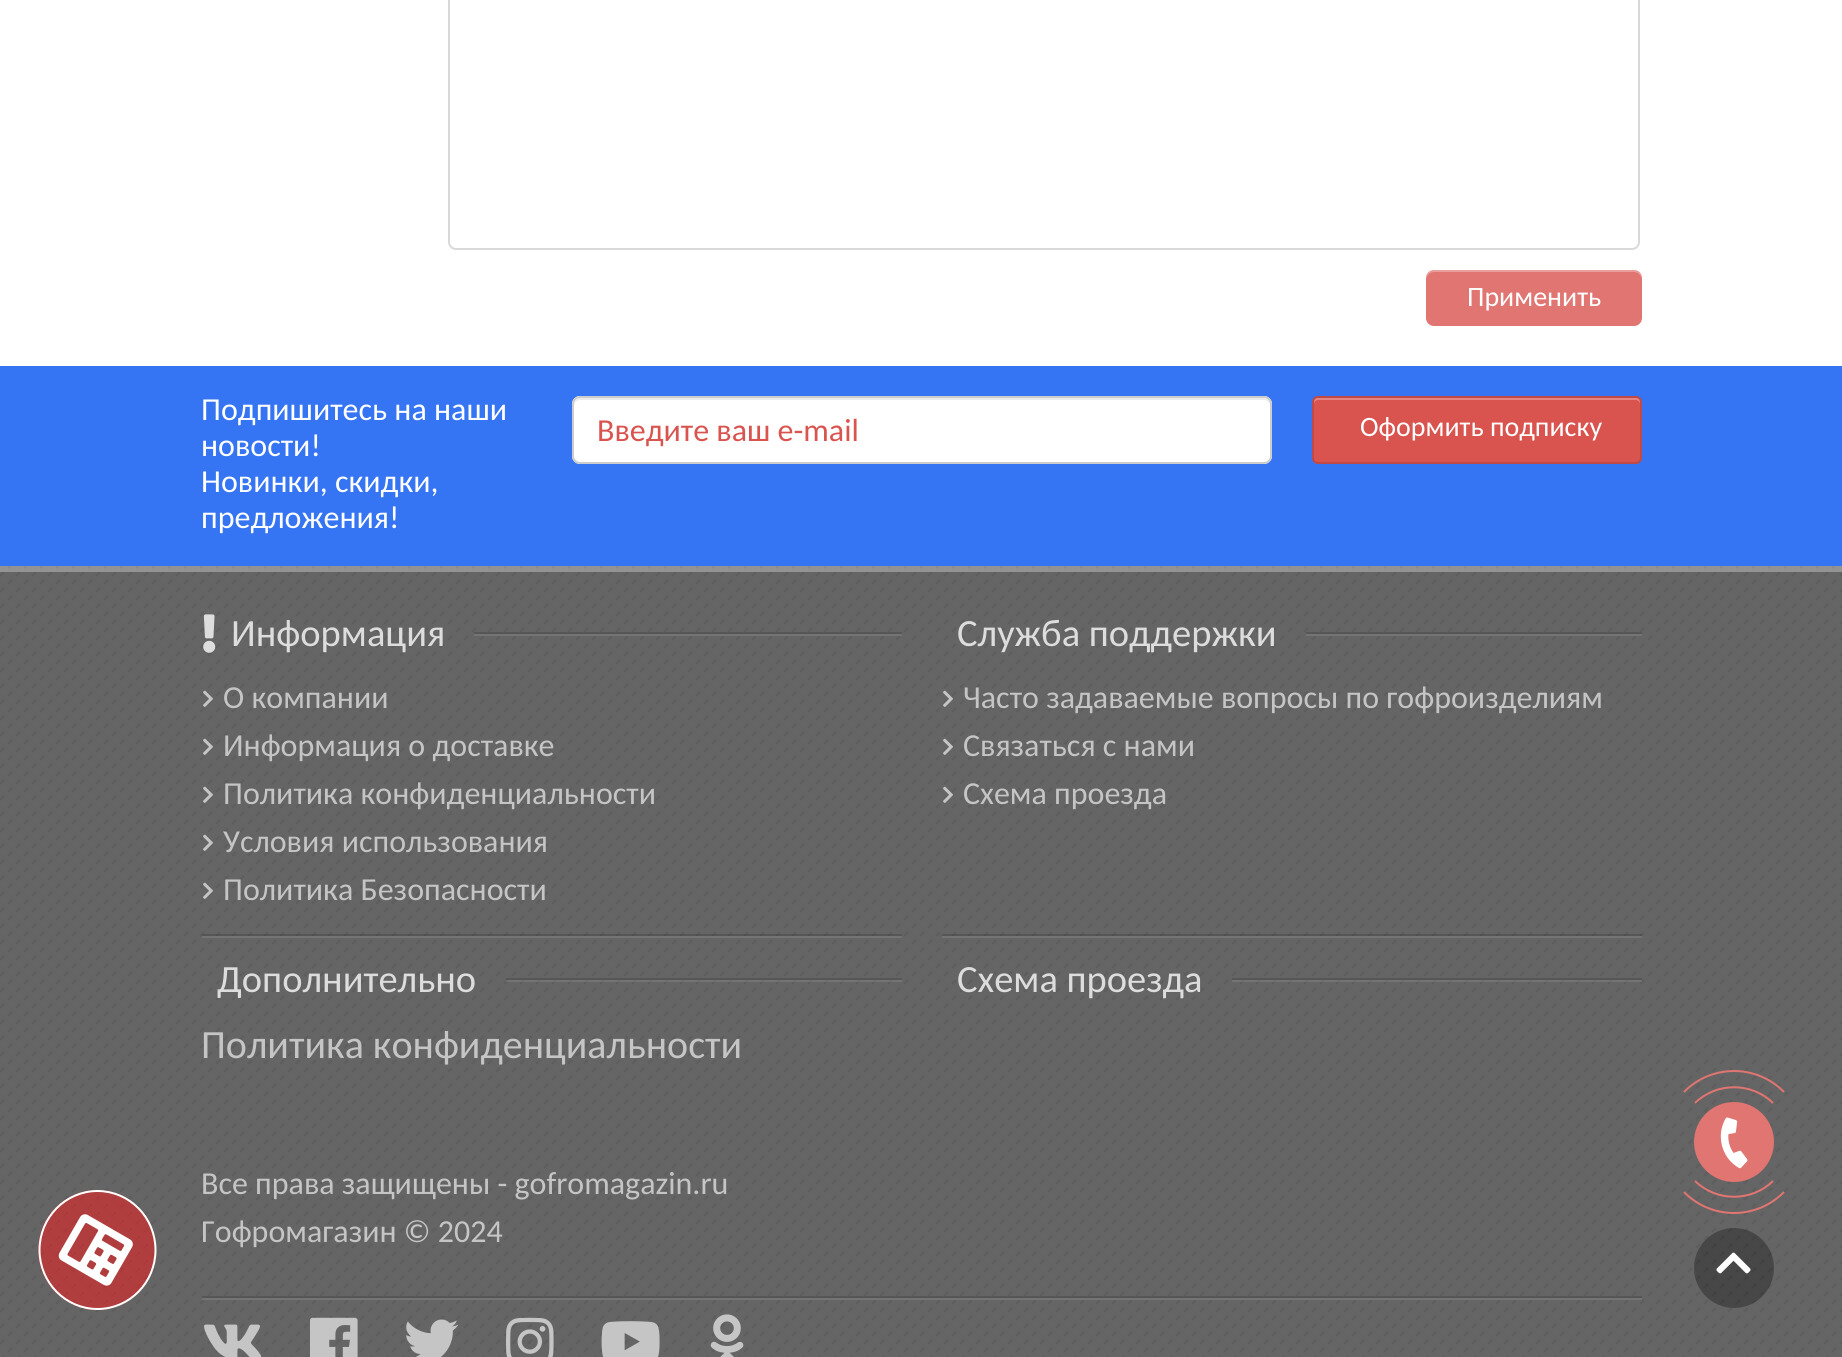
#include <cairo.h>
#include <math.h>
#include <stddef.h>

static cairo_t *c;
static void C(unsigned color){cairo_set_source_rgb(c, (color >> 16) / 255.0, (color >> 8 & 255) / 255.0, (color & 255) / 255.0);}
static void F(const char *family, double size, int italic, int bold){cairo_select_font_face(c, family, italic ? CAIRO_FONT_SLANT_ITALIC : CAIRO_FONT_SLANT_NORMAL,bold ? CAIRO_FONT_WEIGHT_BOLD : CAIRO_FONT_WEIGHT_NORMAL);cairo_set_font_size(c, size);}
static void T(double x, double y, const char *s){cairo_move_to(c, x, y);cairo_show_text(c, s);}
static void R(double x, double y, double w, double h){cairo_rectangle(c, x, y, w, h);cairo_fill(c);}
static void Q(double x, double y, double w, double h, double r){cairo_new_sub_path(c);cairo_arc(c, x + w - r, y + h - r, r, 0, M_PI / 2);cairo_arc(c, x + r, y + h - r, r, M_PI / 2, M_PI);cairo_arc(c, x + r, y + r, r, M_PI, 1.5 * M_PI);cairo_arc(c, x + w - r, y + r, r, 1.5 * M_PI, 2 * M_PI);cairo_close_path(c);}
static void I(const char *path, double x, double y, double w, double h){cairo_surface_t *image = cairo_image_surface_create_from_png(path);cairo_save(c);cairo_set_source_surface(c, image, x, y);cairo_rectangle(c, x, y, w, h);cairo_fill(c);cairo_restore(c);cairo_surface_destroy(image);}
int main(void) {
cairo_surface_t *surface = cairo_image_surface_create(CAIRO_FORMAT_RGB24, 1842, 1357);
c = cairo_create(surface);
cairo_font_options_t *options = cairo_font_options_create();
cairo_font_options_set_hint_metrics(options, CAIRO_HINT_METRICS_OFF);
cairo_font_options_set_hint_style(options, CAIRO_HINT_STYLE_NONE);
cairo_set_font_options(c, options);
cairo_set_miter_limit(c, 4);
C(0xffffff);
cairo_paint(c);
Q(449,-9,1190,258,7);
C(0xd9d9d9);
cairo_stroke(c);
C(0xe07572);
Q(1426,270,216,56,8);
cairo_fill(c);
cairo_set_source_rgba(c,1,1,1,0.3);
cairo_new_path(c);
cairo_move_to(c,1434,272);
cairo_line_to(c,1634,272);
cairo_curve_to(c,1638,272,1642,276,1642,280);
cairo_line_to(c,1642,278);
cairo_curve_to(c,1642,274,1638,270,1634,270);
cairo_line_to(c,1434,270);
cairo_curve_to(c,1430,270,1426,274,1426,278);
cairo_line_to(c,1426,280);
cairo_curve_to(c,1426,276,1430,272,1434,272);
cairo_close_path(c);
cairo_fill(c);
F("Carlito",28,0,0);
C(0xffffff);
T(1467,306,"Применить");
C(0x656565);
R(0,566,1842,791);
I("2.png",0,566,1842,791);
cairo_set_source_rgba(c,0,0,0,0.3);
cairo_arc(c,1734,1268,40,0,2 * M_PI);
cairo_fill(c);
I("1.png",1716,1252,35,22);
C(0x3574f2);
R(0,366,1842,200);
F("Carlito",32,0,0);
C(0xffffff);
T(201,420,"Подпишитесь на наши");
T(201,456,"новости!");
T(201,492,"Новинки, скидки,");
T(201,528,"предложения!");
Q(572,396,700,68,8);
cairo_fill(c);
C(0xececec);
cairo_new_path(c);
cairo_move_to(c,580,400);
cairo_line_to(c,1264,400);
cairo_curve_to(c,1267,400,1270,403,1270,406);
cairo_line_to(c,1270,404);
cairo_curve_to(c,1270,401,1267,398,1264,398);
cairo_line_to(c,580,398);
cairo_curve_to(c,577,398,574,401,574,404);
cairo_line_to(c,574,406);
cairo_curve_to(c,574,403,577,400,580,400);
cairo_close_path(c);
cairo_fill(c);
Q(573,397,698,66,7);
C(0xcccccc);
cairo_stroke(c);
C(0xd9534f);
T(597,441,"Введите ваш e-mail");
Q(1312,396,330,68,6);
cairo_fill(c);
C(0xe48784);
cairo_new_path(c);
cairo_move_to(c,1318,400);
cairo_line_to(c,1636,400);
cairo_curve_to(c,1638,400,1640,402,1640,404);
cairo_curve_to(c,1640,401,1640,398,1636,398);
cairo_line_to(c,1318,398);
cairo_curve_to(c,1314,398,1314,401,1314,404);
cairo_curve_to(c,1314,402,1316,400,1318,400);
cairo_close_path(c);
cairo_fill(c);
Q(1313,397,328,66,5);
cairo_set_source_rgba(c,0,0,0,0.12);
cairo_stroke(c);
F("Carlito",28,0,0);
C(0xffffff);
T(1360,436,"Оформить подписку");
cairo_set_source_rgba(c,1,1,1,0.3);
R(0,566,1842,6);
cairo_set_source_rgba(c,0.976,0.098,0.098,0.51);
cairo_new_path(c);
cairo_move_to(c,38,1250);
cairo_curve_to(c,38,1217,65,1190,97,1190);
cairo_curve_to(c,130,1190,156,1217,156,1250);
cairo_curve_to(c,156,1283,130,1310,97,1310);
cairo_curve_to(c,65,1310,38,1283,38,1250);
cairo_close_path(c);
cairo_fill(c);
cairo_new_path(c);
cairo_move_to(c,39.5,1250);
cairo_curve_to(c,39.5,1217.5,65.5,1191,97.5,1191);
cairo_curve_to(c,129.5,1191,155.5,1217.5,155.5,1250);
cairo_curve_to(c,155.5,1282.5,129.5,1309,97.5,1309);
cairo_curve_to(c,65.5,1309,39.5,1282.5,39.5,1250);
cairo_close_path(c);
C(0xffffff);
cairo_stroke(c);
I("3.png",58,1214,75,72);
I("4.png",203,614,13,39);
F("Carlito",38.5,0,0);
C(0xdddddd);
T(231,646,"Информация");
C(0x565656);
R(474,632,428,2);
C(0x747474);
R(474,634,428,2);
I("5.png",203,690,10,17);
F("Carlito",32,0,0);
C(0xc5c5c5);
T(223,708,"О компании");
I("5.png",203,738,10,17);
T(223,756,"Информация о доставке");
I("5.png",203,786,10,17);
T(223,804,"Политика конфиденциальности");
I("5.png",203,834,10,17);
T(223,852,"Условия использования");
I("5.png",203,882,10,17);
T(223,900,"Политика Безопасности");
F("Carlito",38.5,0,0);
C(0xdddddd);
T(957,646,"Служба поддержки");
C(0x565656);
R(1306,632,336,2);
C(0x747474);
R(1306,634,336,2);
I("6.png",943,690,10,17);
F("Carlito",32,0,0);
C(0xc5c5c5);
T(963,708,"Часто задаваемые вопросы по гофроизделиям");
I("6.png",943,738,10,17);
T(963,756,"Связаться с нами");
I("6.png",943,786,10,17);
T(963,804,"Схема проезда");
cairo_set_source_rgba(c,0,0,0,0.15);
R(202,934,700,2);
C(0x747474);
R(202,936,700,2);
F("Carlito",38.5,0,0);
C(0xdddddd);
T(217,992,"Дополнительно");
C(0x565656);
R(506,978,396,2);
cairo_set_source_rgba(c,1,1,1,0.1);
R(506,980,396,2);
F("Carlito",40,0,0);
C(0xc5c5c5);
T(201,1058,"Политика конфиденциальности");
F("Carlito",32,0,0);
T(201,1194,"Все права защищены - gofromagazin.ru");
T(201,1242,"Гофромагазин © 2024");
cairo_set_source_rgba(c,0,0,0,0.15);
R(942,934,700,2);
C(0x747474);
R(942,936,700,2);
F("Carlito",38.5,0,0);
C(0xdddddd);
T(957,992,"Схема проезда");
C(0x565656);
R(1232,978,410,2);
cairo_set_source_rgba(c,1,1,1,0.1);
R(1232,980,410,2);
C(0x565656);
R(202,1296,1440,2);
C(0x747474);
R(202,1298,1440,2);
I("7.png",204,1324,58,33);
I("8.png",310,1317,48,40);
I("9.png",406,1319,53,38);
I("10.png",506,1317,48,40);
I("11.png",601,1321,59,36);
I("12.png",710,1314,34,43);
C(0xe07572);
cairo_arc(c,1734,1142,40,0,2 * M_PI);
cairo_fill(c);
cairo_new_path(c);
cairo_move_to(c,1695,1103);
cairo_curve_to(c,1716.5,1082,1751.5,1082,1773,1103);
cairo_stroke(c);
cairo_new_path(c);
cairo_move_to(c,1684,1092);
cairo_curve_to(c,1711.5,1064,1756.5,1064,1784,1092);
cairo_stroke(c);
cairo_new_path(c);
cairo_move_to(c,1773,1181);
cairo_curve_to(c,1751.5,1202,1716.5,1202,1695,1181);
cairo_stroke(c);
cairo_new_path(c);
cairo_move_to(c,1784,1192);
cairo_curve_to(c,1756.5,1220,1711.5,1220,1684,1192);
cairo_stroke(c);
I("13.png",1720,1117,28,52);
cairo_surface_write_to_png(surface, "o.png");
cairo_font_options_destroy(options);
cairo_destroy(c);
cairo_surface_destroy(surface);
return 0;
}
